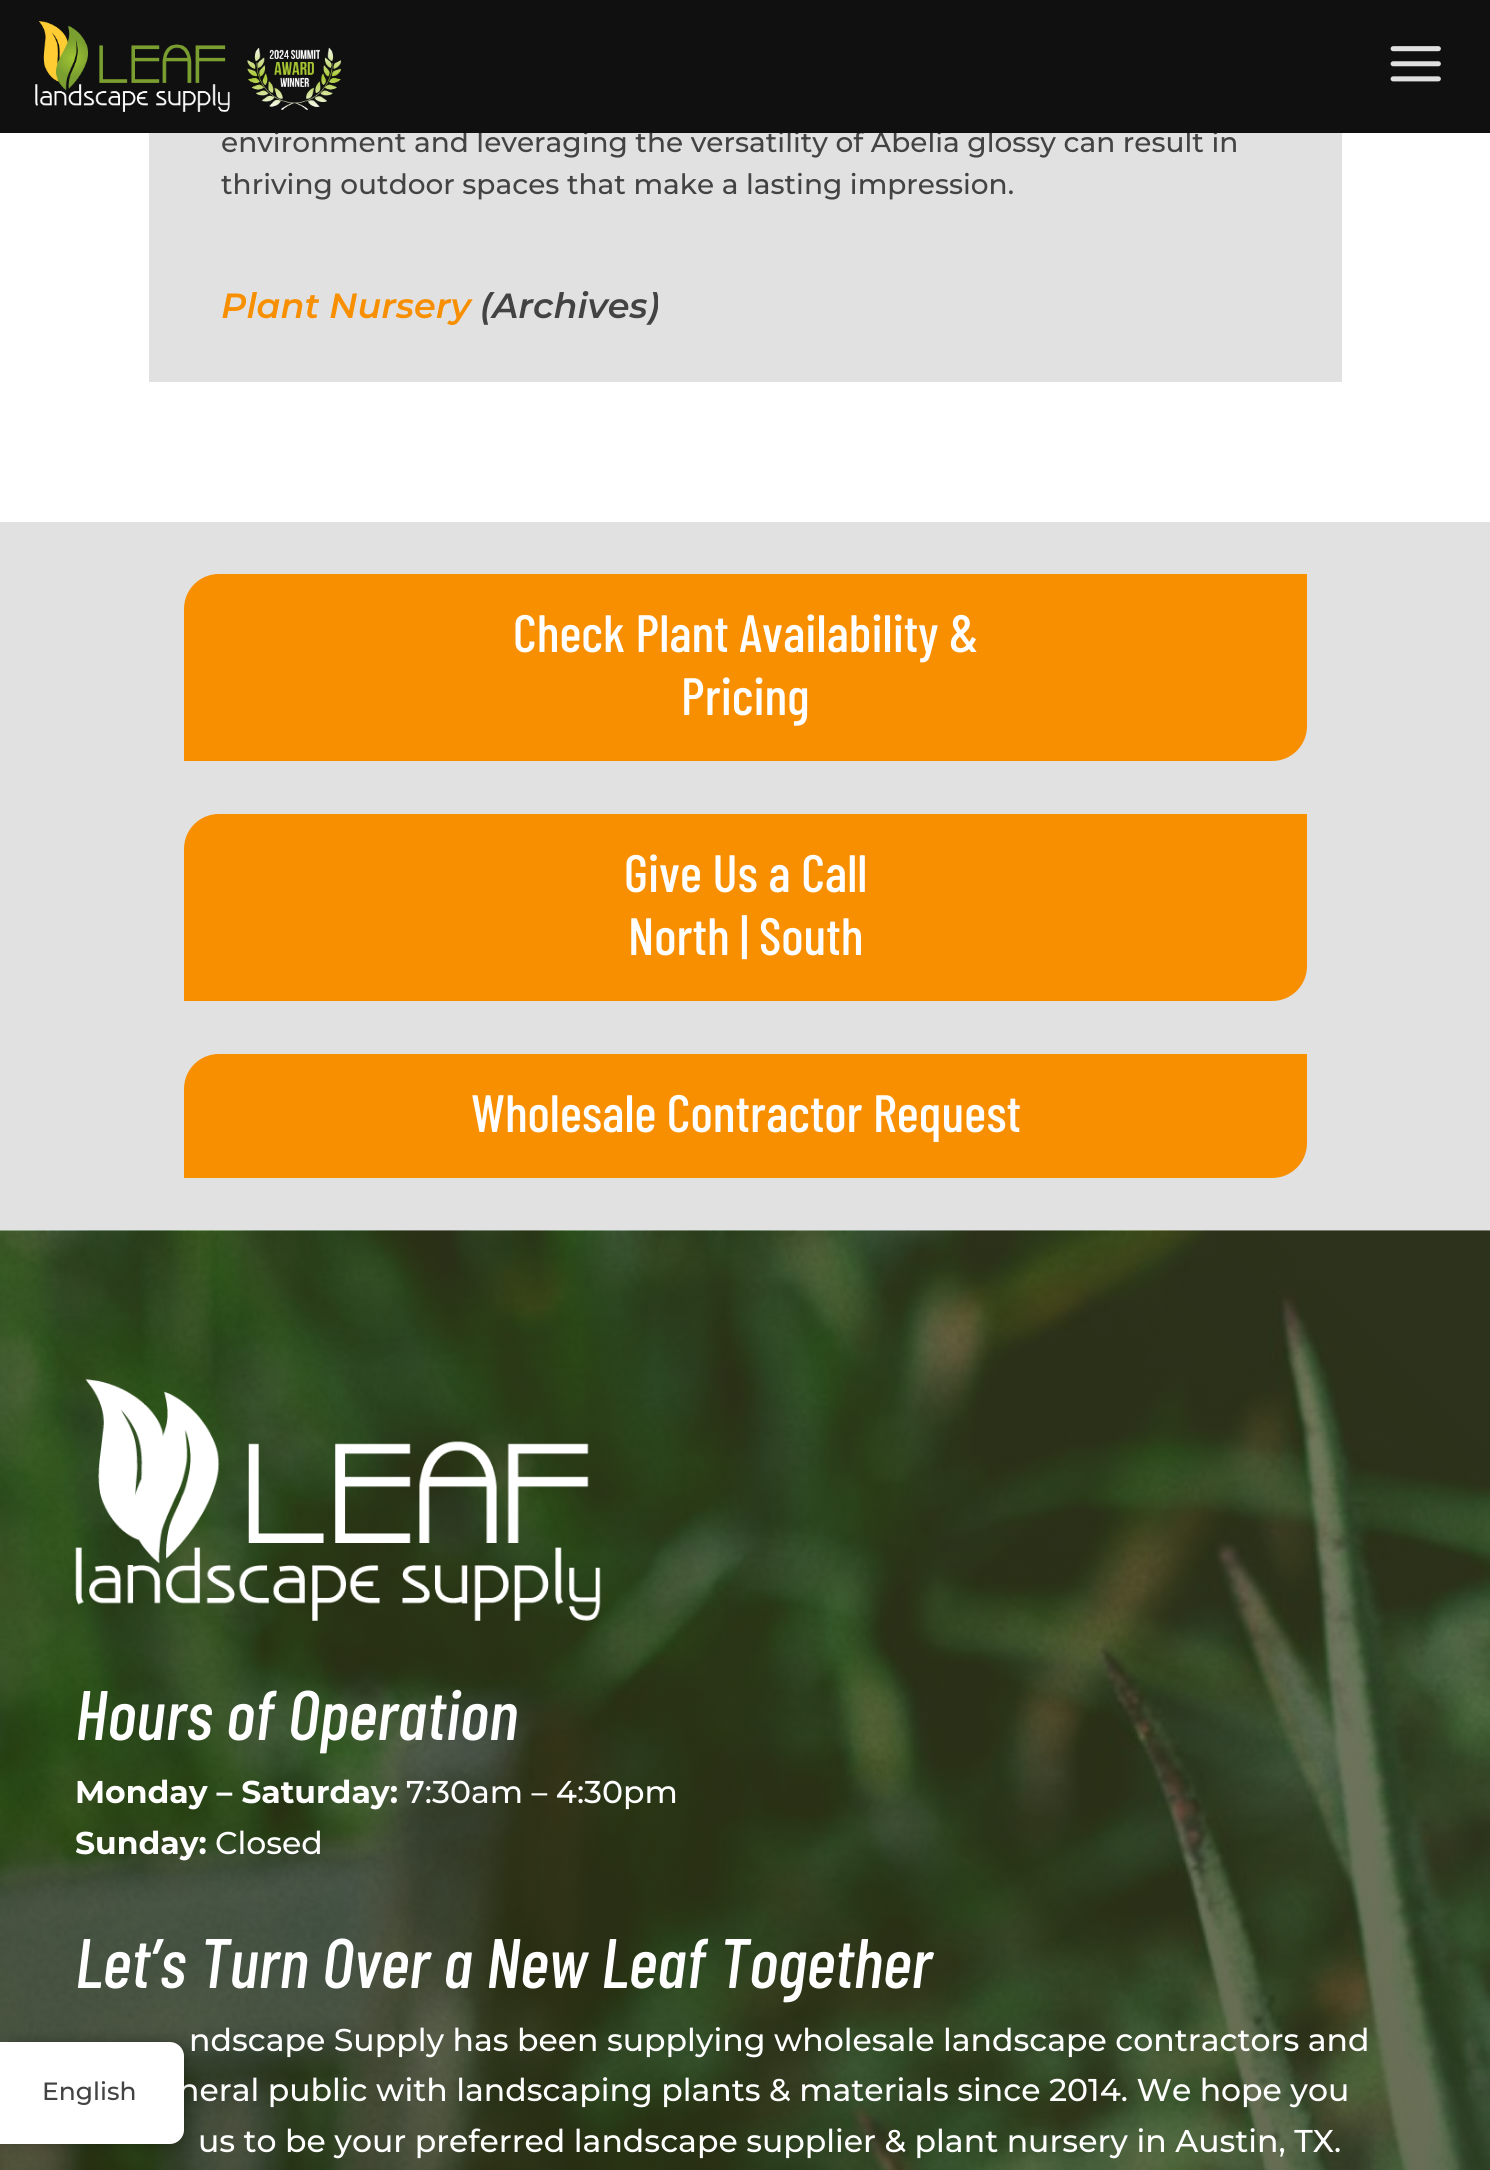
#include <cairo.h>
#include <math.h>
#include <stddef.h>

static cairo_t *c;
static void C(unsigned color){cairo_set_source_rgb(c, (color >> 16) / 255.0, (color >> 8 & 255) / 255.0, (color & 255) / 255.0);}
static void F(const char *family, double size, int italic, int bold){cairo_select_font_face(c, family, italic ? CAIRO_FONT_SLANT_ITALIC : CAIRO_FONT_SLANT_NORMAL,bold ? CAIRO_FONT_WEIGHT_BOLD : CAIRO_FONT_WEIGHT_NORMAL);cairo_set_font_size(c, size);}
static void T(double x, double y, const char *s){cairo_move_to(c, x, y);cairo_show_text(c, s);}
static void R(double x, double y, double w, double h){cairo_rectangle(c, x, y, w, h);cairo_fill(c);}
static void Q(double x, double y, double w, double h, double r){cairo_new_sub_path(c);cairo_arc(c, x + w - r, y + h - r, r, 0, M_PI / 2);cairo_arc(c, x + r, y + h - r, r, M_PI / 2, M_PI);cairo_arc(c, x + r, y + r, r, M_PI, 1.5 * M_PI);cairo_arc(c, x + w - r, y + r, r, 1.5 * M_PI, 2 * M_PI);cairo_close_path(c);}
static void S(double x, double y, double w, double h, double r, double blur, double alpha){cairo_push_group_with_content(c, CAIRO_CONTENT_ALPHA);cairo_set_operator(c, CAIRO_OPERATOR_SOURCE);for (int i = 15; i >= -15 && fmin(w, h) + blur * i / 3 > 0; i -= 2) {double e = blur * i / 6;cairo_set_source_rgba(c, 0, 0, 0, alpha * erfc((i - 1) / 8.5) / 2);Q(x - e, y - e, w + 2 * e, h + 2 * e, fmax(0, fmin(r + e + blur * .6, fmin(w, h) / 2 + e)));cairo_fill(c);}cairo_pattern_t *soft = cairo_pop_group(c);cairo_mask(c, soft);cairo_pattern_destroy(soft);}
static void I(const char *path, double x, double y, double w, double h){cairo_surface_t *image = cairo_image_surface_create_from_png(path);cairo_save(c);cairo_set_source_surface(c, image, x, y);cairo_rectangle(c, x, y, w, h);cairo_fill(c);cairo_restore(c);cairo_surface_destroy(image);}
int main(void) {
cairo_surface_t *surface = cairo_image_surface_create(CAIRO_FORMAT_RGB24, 1490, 2170);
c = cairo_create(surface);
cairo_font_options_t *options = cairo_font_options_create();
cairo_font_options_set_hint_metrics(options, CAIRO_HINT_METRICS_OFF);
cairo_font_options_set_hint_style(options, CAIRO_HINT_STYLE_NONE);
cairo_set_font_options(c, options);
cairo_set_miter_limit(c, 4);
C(0xffffff);
cairo_paint(c);
C(0xe1e1e1);
R(149,133,1193,249);
F("Montserrat Thin",28,0,0);
C(0x434343);
T(221,152,"environment and leveraging the versatility of Abelia glossy can result in");
C(0x101010);
R(0,0,1490,133);
I("1.png",35,21,306,91);
I("2.png",1390,46,51,36);
C(0x434343);
T(221,194,"thriving outdoor spaces that make a lasting impression.");
F("Montserrat Thin",35,1,0);
C(0xf88f00);
T(221,318,"Plant Nursery");
C(0x434343);
T(480,318,"(Archives)");
C(0xe1e1e1);
R(0,522,1490,708);
C(0xf88f00);
cairo_new_path(c);
cairo_move_to(c,219,574);
cairo_line_to(c,1307,574);
cairo_line_to(c,1307,726);
cairo_curve_to(c,1307,745.5,1291.5,761,1272,761);
cairo_line_to(c,184,761);
cairo_line_to(c,184,609);
cairo_curve_to(c,184,589.5,199.5,574,219,574);
cairo_close_path(c);
cairo_fill(c);
F("Barlow Condensed Medium",52.5,0,0);
C(0xffffff);
T(513,652,"Check Plant Availability &");
T(681,715,"Pricing");
C(0xf88f00);
cairo_new_path(c);
cairo_move_to(c,219,814);
cairo_line_to(c,1307,814);
cairo_line_to(c,1307,966);
cairo_curve_to(c,1307,985.5,1291.5,1001,1272,1001);
cairo_line_to(c,184,1001);
cairo_line_to(c,184,849);
cairo_curve_to(c,184,829.5,199.5,814,219,814);
cairo_close_path(c);
cairo_fill(c);
C(0xffffff);
T(624,892,"Give Us a Call");
T(628,955,"North | South");
C(0xf88f00);
cairo_new_path(c);
cairo_move_to(c,219,1054);
cairo_line_to(c,1307,1054);
cairo_line_to(c,1307,1143);
cairo_curve_to(c,1307,1162.5,1291.5,1178,1272,1178);
cairo_line_to(c,184,1178);
cairo_line_to(c,184,1089);
cairo_curve_to(c,184,1069.5,199.5,1054,219,1054);
cairo_close_path(c);
cairo_fill(c);
C(0xffffff);
T(471,1132,"Wholesale Contractor Request");
I("3.png",0,1230,1490,940);
I("4.png",75,1379,526,242);
F("Barlow Condensed Medium",70,1,0);
T(75,1740,"Hours of Operation");
F("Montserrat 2 Thin",31.5,0,0);
T(75,1803,"Monday – Saturday:");
F("Montserrat Thin",31.5,0,0);
T(406,1803,"7:30am – 4:30pm");
F("Montserrat 2 Thin",31.5,0,0);
T(75,1854,"Sunday:");
F("Montserrat Thin",31.5,0,0);
T(215,1854,"Closed");
F("Barlow Condensed Medium",70,1,0);
T(75,1988,"Let’s Turn Over a New Leaf Together");
F("Montserrat Thin",31.5,0,0);
T(189,2051,"ndscape Supply has been supplying wholesale landscape contractors and");
T(178,2101,"neral public with landscaping plants & materials since 2014. We hope you");
T(198,2152,"us to be your preferred landscape supplier & plant nursery in Austin, TX.");
C(0x000000);
S(0,2042,184,102,14,7,.25);
C(0xffffff);
cairo_new_path(c);
cairo_move_to(c,0,2042);
cairo_line_to(c,170,2042);
cairo_curve_to(c,177.5,2042,184,2048.5,184,2056);
cairo_line_to(c,184,2130);
cairo_curve_to(c,184,2137.5,177.5,2144,170,2144);
cairo_line_to(c,0,2144);
cairo_close_path(c);
cairo_fill(c);
F("Montserrat Thin",25,0,0);
C(0x434343);
T(42,2100,"English");
cairo_surface_write_to_png(surface, "o.png");
cairo_font_options_destroy(options);
cairo_destroy(c);
cairo_surface_destroy(surface);
return 0;
}
